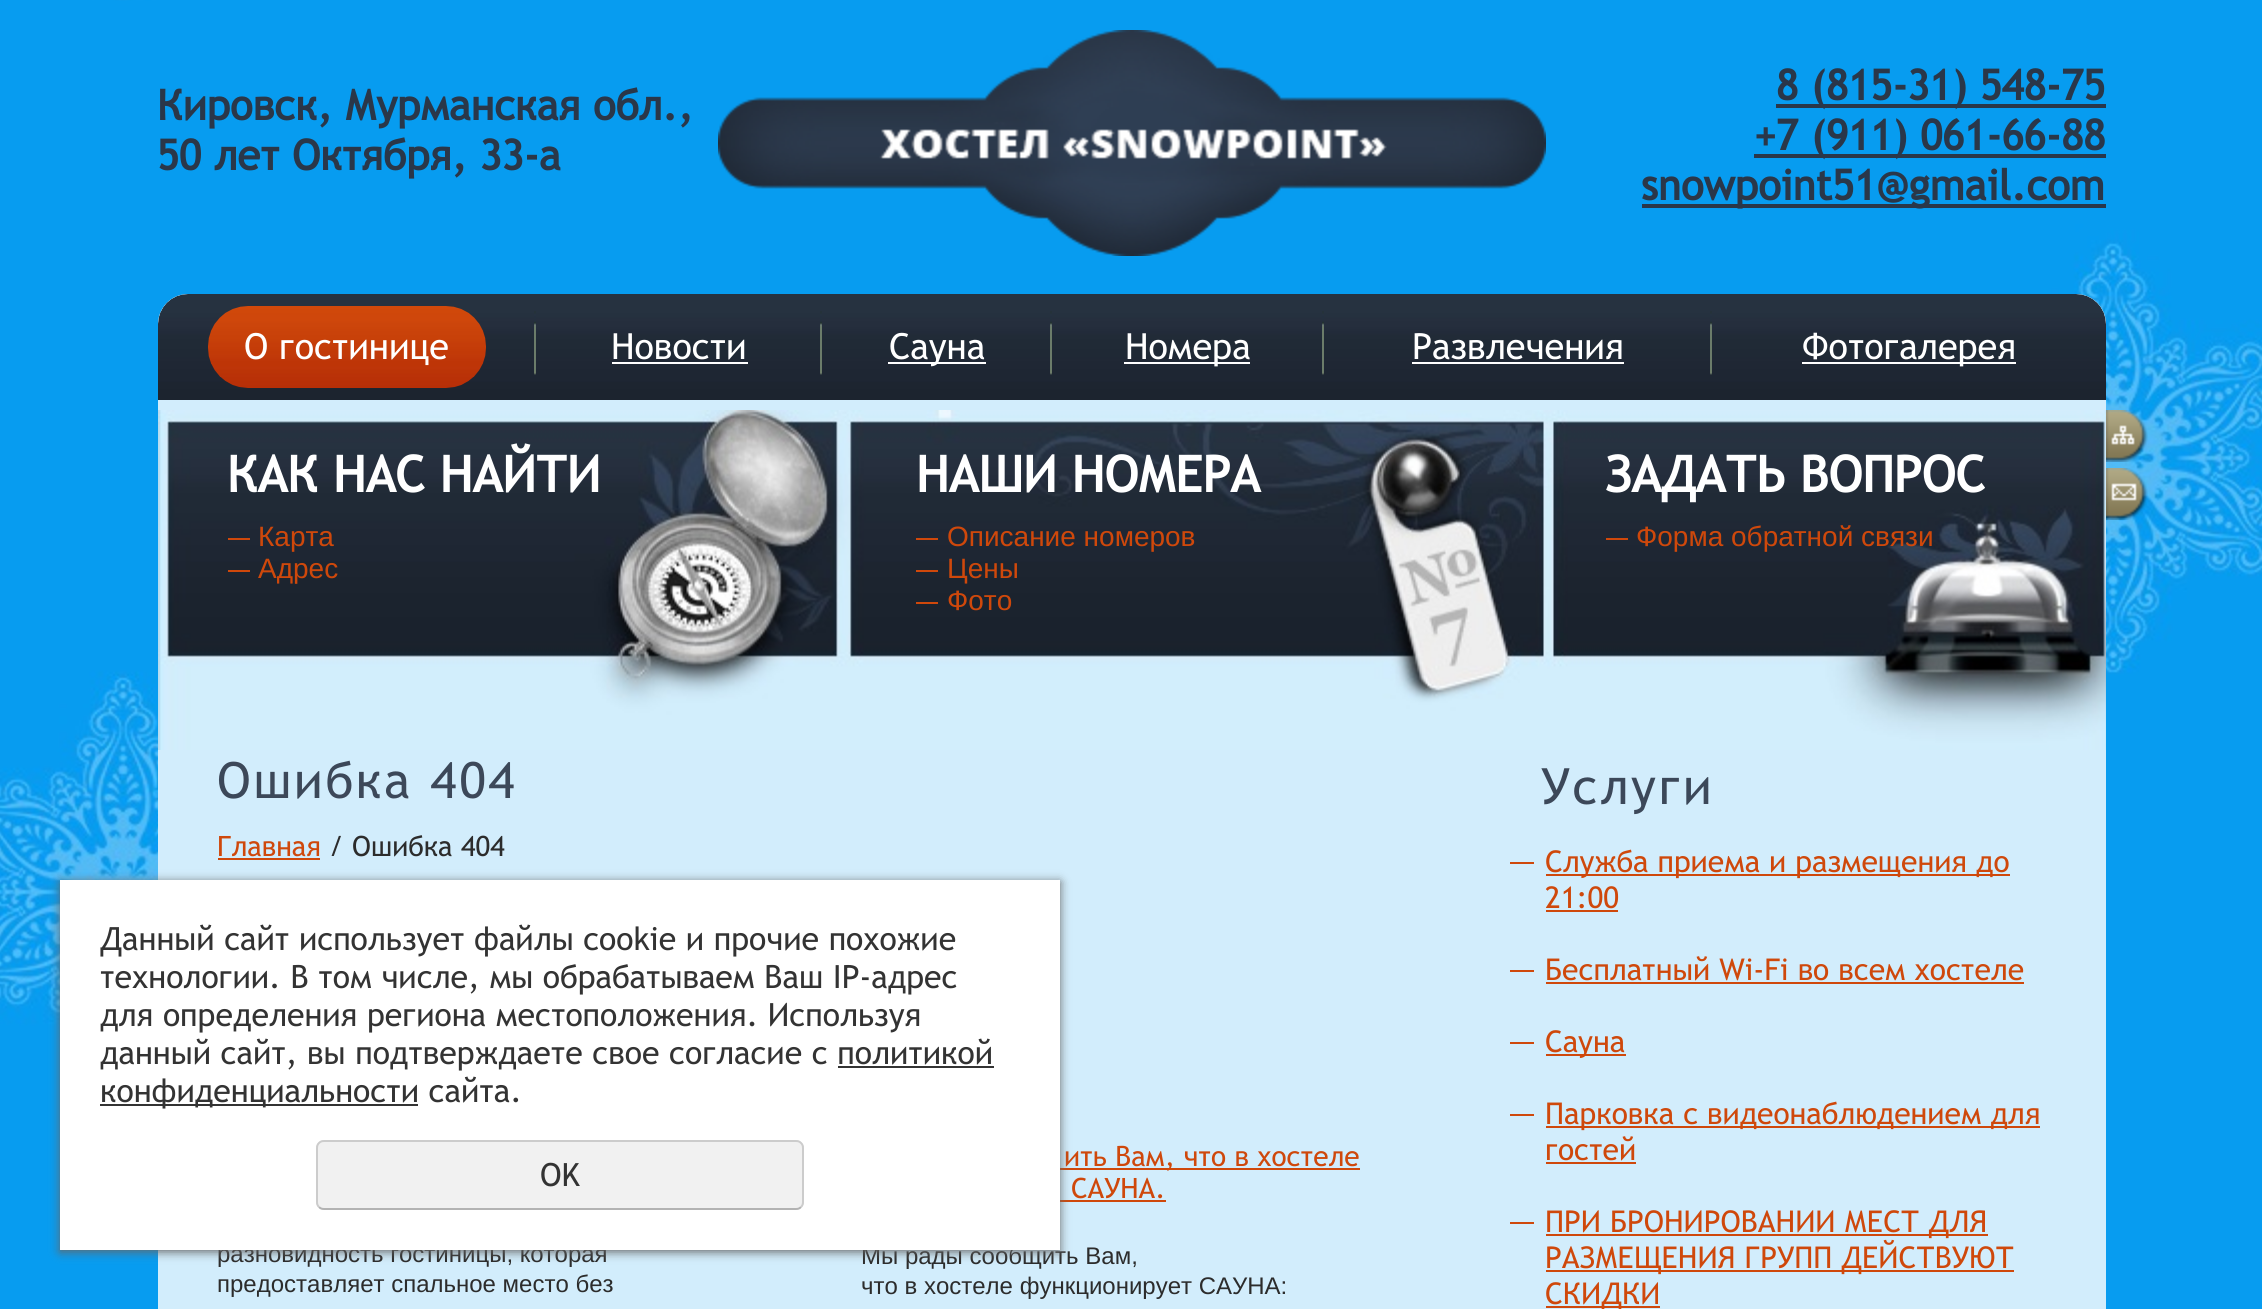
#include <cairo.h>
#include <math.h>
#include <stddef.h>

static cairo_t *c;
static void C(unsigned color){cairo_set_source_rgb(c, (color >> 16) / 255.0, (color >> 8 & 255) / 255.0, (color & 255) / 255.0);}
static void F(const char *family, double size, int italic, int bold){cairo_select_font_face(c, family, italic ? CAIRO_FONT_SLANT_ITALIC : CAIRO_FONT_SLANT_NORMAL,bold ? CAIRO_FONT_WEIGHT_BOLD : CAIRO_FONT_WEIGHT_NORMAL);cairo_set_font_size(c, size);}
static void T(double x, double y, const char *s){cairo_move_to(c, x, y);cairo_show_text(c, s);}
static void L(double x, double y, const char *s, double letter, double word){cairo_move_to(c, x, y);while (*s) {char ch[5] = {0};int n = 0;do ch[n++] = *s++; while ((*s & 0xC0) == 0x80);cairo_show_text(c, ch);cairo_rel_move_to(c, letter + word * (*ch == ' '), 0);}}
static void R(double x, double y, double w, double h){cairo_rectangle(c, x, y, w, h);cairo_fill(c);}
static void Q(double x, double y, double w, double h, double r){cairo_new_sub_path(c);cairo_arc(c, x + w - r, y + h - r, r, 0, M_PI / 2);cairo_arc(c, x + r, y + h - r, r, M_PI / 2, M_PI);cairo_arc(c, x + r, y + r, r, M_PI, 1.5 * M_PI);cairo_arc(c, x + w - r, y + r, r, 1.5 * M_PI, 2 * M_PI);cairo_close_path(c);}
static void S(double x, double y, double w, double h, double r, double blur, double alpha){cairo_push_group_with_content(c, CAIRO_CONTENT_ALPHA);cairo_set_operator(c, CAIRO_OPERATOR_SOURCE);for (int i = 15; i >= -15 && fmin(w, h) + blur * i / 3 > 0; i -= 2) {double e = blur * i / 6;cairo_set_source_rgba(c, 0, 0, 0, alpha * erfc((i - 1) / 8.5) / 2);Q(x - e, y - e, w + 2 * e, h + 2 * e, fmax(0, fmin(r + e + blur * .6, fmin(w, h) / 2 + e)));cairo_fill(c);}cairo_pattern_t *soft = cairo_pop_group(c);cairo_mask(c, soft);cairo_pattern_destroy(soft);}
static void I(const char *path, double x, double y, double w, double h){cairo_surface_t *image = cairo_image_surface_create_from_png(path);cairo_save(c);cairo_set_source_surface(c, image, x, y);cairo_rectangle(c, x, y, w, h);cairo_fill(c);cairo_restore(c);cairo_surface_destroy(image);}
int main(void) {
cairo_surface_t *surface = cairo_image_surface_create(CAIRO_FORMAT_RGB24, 2262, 1309);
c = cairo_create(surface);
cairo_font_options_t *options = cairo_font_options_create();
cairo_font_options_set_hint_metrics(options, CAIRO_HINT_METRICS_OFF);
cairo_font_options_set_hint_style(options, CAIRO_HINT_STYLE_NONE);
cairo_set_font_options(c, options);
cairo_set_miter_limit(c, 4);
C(0xffffff);
cairo_paint(c);
I("1.png",0,0,2262,1309);
F("Trebuchet MS",42,0,1);
C(0x2a3749);
T(157,120,"Кировск, Мурманская обл.,");
T(157,170,"50 лет Октября, 33-а");
I("2.png",718,30,828,226);
R(1776,104,330,4);
T(1776,100,"8 (815-31) 548-75");
R(1754,154,352,4);
T(1754,150,"+7 (911) 061-66-88");
R(1642,204,464,4);
T(1641,200,"snowpoint51@gmail.com");
C(0xd2edfc);
cairo_new_path(c);
cairo_move_to(c,188,294);
cairo_line_to(c,2076,294);
cairo_curve_to(c,2092.5,294,2106,307.5,2106,324);
cairo_line_to(c,2106,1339);
cairo_line_to(c,158,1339);
cairo_line_to(c,158,324);
cairo_curve_to(c,158,307.5,171.5,294,188,294);
cairo_close_path(c);
cairo_fill(c);
I("3.png",158,294,1948,106);
I("4.png",534,311,2,64);
I("5.png",208,306,278,82);
F("Trebuchet MS",36,0,0);
C(0xffffff);
T(244,359,"О гостинице");
I("4.png",820,311,2,64);
T(611,359,"Новости");
R(612,362,136,2);
I("4.png",1050,311,2,64);
R(888,362,98,2);
T(889,359,"Сауна");
I("4.png",1322,311,2,64);
R(1124,362,126,2);
T(1125,359,"Номера");
I("4.png",1710,311,2,64);
T(1412,359,"Развлечения");
R(1412,362,212,2);
R(1802,362,214,2);
T(1802,359,"Фотогалерея");
I("6.png",158,410,1948,340);
F("Trebuchet MS",50,0,1);
T(227,492,"КАК НАС НАЙТИ");
F("Liberation Sans",28,0,0);
C(0xcf480b);
T(258,546,"Карта");
R(228,538,22,2);
T(258,578,"Адрес");
R(228,570,22,2);
F("Trebuchet MS",50,0,1);
C(0xffffff);
T(916,492,"НАШИ НОМЕРА");
F("Liberation Sans",28,0,0);
C(0xcf480b);
T(947,546,"Описание номеров");
R(916,538,22,2);
T(947,578,"Цены");
R(916,570,22,2);
T(947,610,"Фото");
R(916,602,22,2);
F("Trebuchet MS",50,0,1);
C(0xffffff);
T(1605,492,"ЗАДАТЬ ВОПРОС");
F("Liberation Sans",28,0,0);
C(0xcf480b);
T(1636,546,"Форма обратной связи");
R(1606,538,22,2);
F("Trebuchet MS",50,0,0);
C(0x3c4859);
L(217,798,"Ошибка 404",2.75,0);
F("Trebuchet MS",28,0,0);
C(0xcf480b);
T(217,856,"Главная");
R(218,858,102,2);
C(0x2c2c2c);
T(329,856,"/ Ошибка 404");
F("Liberation Sans",24,0,0);
T(217,1262,"разновидность гостиницы, которая");
T(217,1292,"предоставляет спальное место без");
C(0xcf480b);
R(1060,1168,300,2);
F("Trebuchet MS",28,0,0);
T(1064,1166,"ить Вам, что в хостеле");
T(1071,1198,"САУНА.");
R(1060,1200,106,2);
F("Liberation Sans",24,0,0);
C(0x2c2c2c);
T(861,1264,"Мы рады сообщить Вам,");
T(861,1294,"что в хостеле функционирует САУНА:");
F("Trebuchet MS",50,0,0);
C(0x3c4859);
L(1541,804,"Услуги",2.75,0);
C(0xcf480b);
R(1510,862,24,2);
R(1546,874,464,2);
F("Trebuchet MS",30,0,0);
T(1545,872,"Служба приема и размещения до");
T(1545,908,"21:00");
R(1546,910,72,2);
R(1510,970,24,2);
T(1545,980,"Бесплатный Wi-Fi во всем хостеле");
R(1546,982,478,2);
R(1510,1042,24,2);
R(1546,1054,80,2);
T(1545,1052,"Сауна");
R(1510,1114,24,2);
R(1546,1126,494,2);
T(1545,1124,"Парковка с видеонаблюдением для");
T(1545,1160,"гостей");
R(1546,1162,90,2);
R(1510,1222,24,2);
R(1546,1234,442,2);
T(1545,1232,"ПРИ БРОНИРОВАНИИ МЕСТ ДЛЯ");
R(1546,1270,468,2);
T(1545,1268,"РАЗМЕЩЕНИЯ ГРУПП ДЕЙСТВУЮТ");
R(1546,1306,114,2);
T(1545,1304,"СКИДКИ");
I("7.png",2106,410,42,52);
I("8.png",2106,468,42,52);
C(0x666666);
S(60,882,1000,370,0,5,1);
C(0xffffff);
R(60,880,1000,370);
F("Trebuchet MS",32,0,0);
C(0x333333);
T(100,950,"Данный сайт использует файлы cookie и прочие похожие");
T(100,988,"технологии. В том числе, мы обрабатываем Ваш IP-адрес");
T(100,1026,"для определения региона местоположения. Используя");
T(100,1064,"данный сайт, вы подтверждаете свое согласие с политикой");
R(100,1104,318,2);
T(100,1102,"конфиденциальности сайта.");
R(838,1066,156,2);
C(0xf1f1f1);
Q(316,1140,488,70,8);
cairo_fill(c);
cairo_new_path(c);
cairo_move_to(c,801,1207);
cairo_curve_to(c,799.5,1208.5,798,1209,796,1209);
cairo_line_to(c,324,1209);
cairo_curve_to(c,322,1209,320.5,1208.5,319,1207);
C(0xb3b3b3);
cairo_stroke(c);
cairo_new_path(c);
cairo_move_to(c,319,1207);
cairo_curve_to(c,317.5,1205.5,317,1204,317,1202);
cairo_line_to(c,317,1148);
cairo_curve_to(c,317,1146,317.5,1144.5,319,1143);
cairo_curve_to(c,320.5,1141.5,322,1141,324,1141);
cairo_line_to(c,796,1141);
cairo_curve_to(c,798,1141,799.5,1141.5,801,1143);
cairo_curve_to(c,802.5,1144.5,803,1146,803,1148);
cairo_line_to(c,803,1202);
cairo_curve_to(c,803,1204,802.5,1205.5,801,1207);
C(0xcccccc);
cairo_stroke(c);
C(0x333333);
T(540,1186,"OK");
cairo_surface_write_to_png(surface, "o.png");
cairo_font_options_destroy(options);
cairo_destroy(c);
cairo_surface_destroy(surface);
return 0;
}
